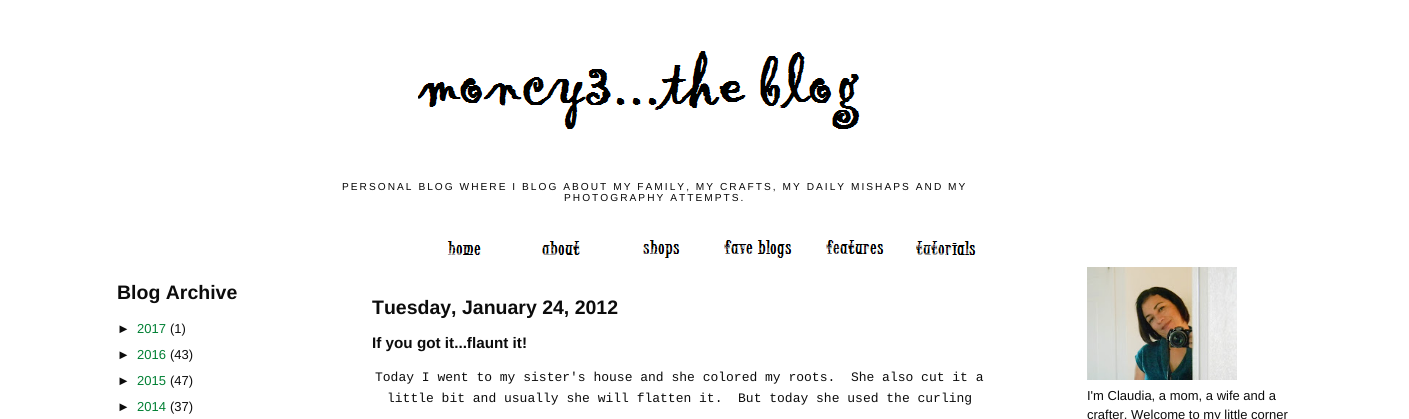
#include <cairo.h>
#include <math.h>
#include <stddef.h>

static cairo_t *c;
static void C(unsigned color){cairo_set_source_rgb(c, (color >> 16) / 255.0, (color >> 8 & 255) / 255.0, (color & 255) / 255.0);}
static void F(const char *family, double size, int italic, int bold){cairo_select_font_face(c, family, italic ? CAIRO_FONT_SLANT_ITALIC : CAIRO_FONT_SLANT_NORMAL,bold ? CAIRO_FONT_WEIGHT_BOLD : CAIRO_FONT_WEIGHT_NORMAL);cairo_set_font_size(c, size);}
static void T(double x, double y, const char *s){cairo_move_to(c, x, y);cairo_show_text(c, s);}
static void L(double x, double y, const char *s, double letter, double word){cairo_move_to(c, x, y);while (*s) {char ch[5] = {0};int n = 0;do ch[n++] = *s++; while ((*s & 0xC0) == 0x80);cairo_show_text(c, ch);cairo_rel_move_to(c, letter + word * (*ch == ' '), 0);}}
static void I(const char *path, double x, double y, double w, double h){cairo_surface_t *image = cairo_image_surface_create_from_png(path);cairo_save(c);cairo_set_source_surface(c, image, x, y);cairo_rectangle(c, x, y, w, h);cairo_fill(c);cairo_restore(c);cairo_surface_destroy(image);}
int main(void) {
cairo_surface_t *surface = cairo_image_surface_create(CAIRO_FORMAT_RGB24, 1409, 419);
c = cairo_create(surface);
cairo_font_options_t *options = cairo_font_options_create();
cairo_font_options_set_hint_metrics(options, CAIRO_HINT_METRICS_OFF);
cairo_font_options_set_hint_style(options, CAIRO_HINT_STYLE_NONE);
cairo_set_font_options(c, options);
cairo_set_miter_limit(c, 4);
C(0xffffff);
cairo_paint(c);
I("1.png",418,51,442,78);
F("Liberation Sans",10.15,0,0);
C(0x060606);
L(342,190,"PERSONAL BLOG WHERE I BLOG ABOUT MY FAMILY, MY CRAFTS, MY DAILY MISHAPS AND MY",2.03,0);
L(564,201,"PHOTOGRAPHY ATTEMPTS.",2.03,0);
I("2.png",447,241,34,14);
I("3.png",542,241,38,14);
I("4.png",643,240,37,18);
I("5.png",724,240,68,18);
I("6.png",826,240,58,14);
I("7.png",916,241,60,14);
F("Liberation Sans",19.5,0,1);
C(0x0c0c0c);
T(117,299,"Blog Archive");
F("Liberation Sans",13,0,0);
T(117,333,"►");
C(0x007f33);
T(137,333,"2017");
C(0x0c0c0c);
T(170,333,"(1)");
T(117,359,"►");
C(0x007f33);
T(137,359,"2016");
C(0x0c0c0c);
T(170,359,"(43)");
T(117,385,"►");
C(0x007f33);
T(137,385,"2015");
C(0x0c0c0c);
T(170,385,"(47)");
T(117,411,"►");
C(0x007f33);
T(137,411,"2014");
C(0x0c0c0c);
T(170,411,"(37)");
F("Liberation Sans",19.5,0,1);
T(372,314,"Tuesday, January 24, 2012");
F("Liberation Sans",15.25,0,1);
T(372,348,"If you got it...flaunt it!");
F("Liberation Mono",13,0,0);
T(375,381,"Today I went to my sister's house and she colored my roots.  She also cut it a");
T(387,402,"little bit and usually she will flatten it.  But today she used the curling");
I("8.png",1087,267,150,113);
F("Liberation Sans",13,0,0);
T(1087,400,"I'm Claudia, a mom, a wife and a");
T(1087,419,"crafter. Welcome to my little corner");
cairo_surface_write_to_png(surface, "o.png");
cairo_font_options_destroy(options);
cairo_destroy(c);
cairo_surface_destroy(surface);
return 0;
}
